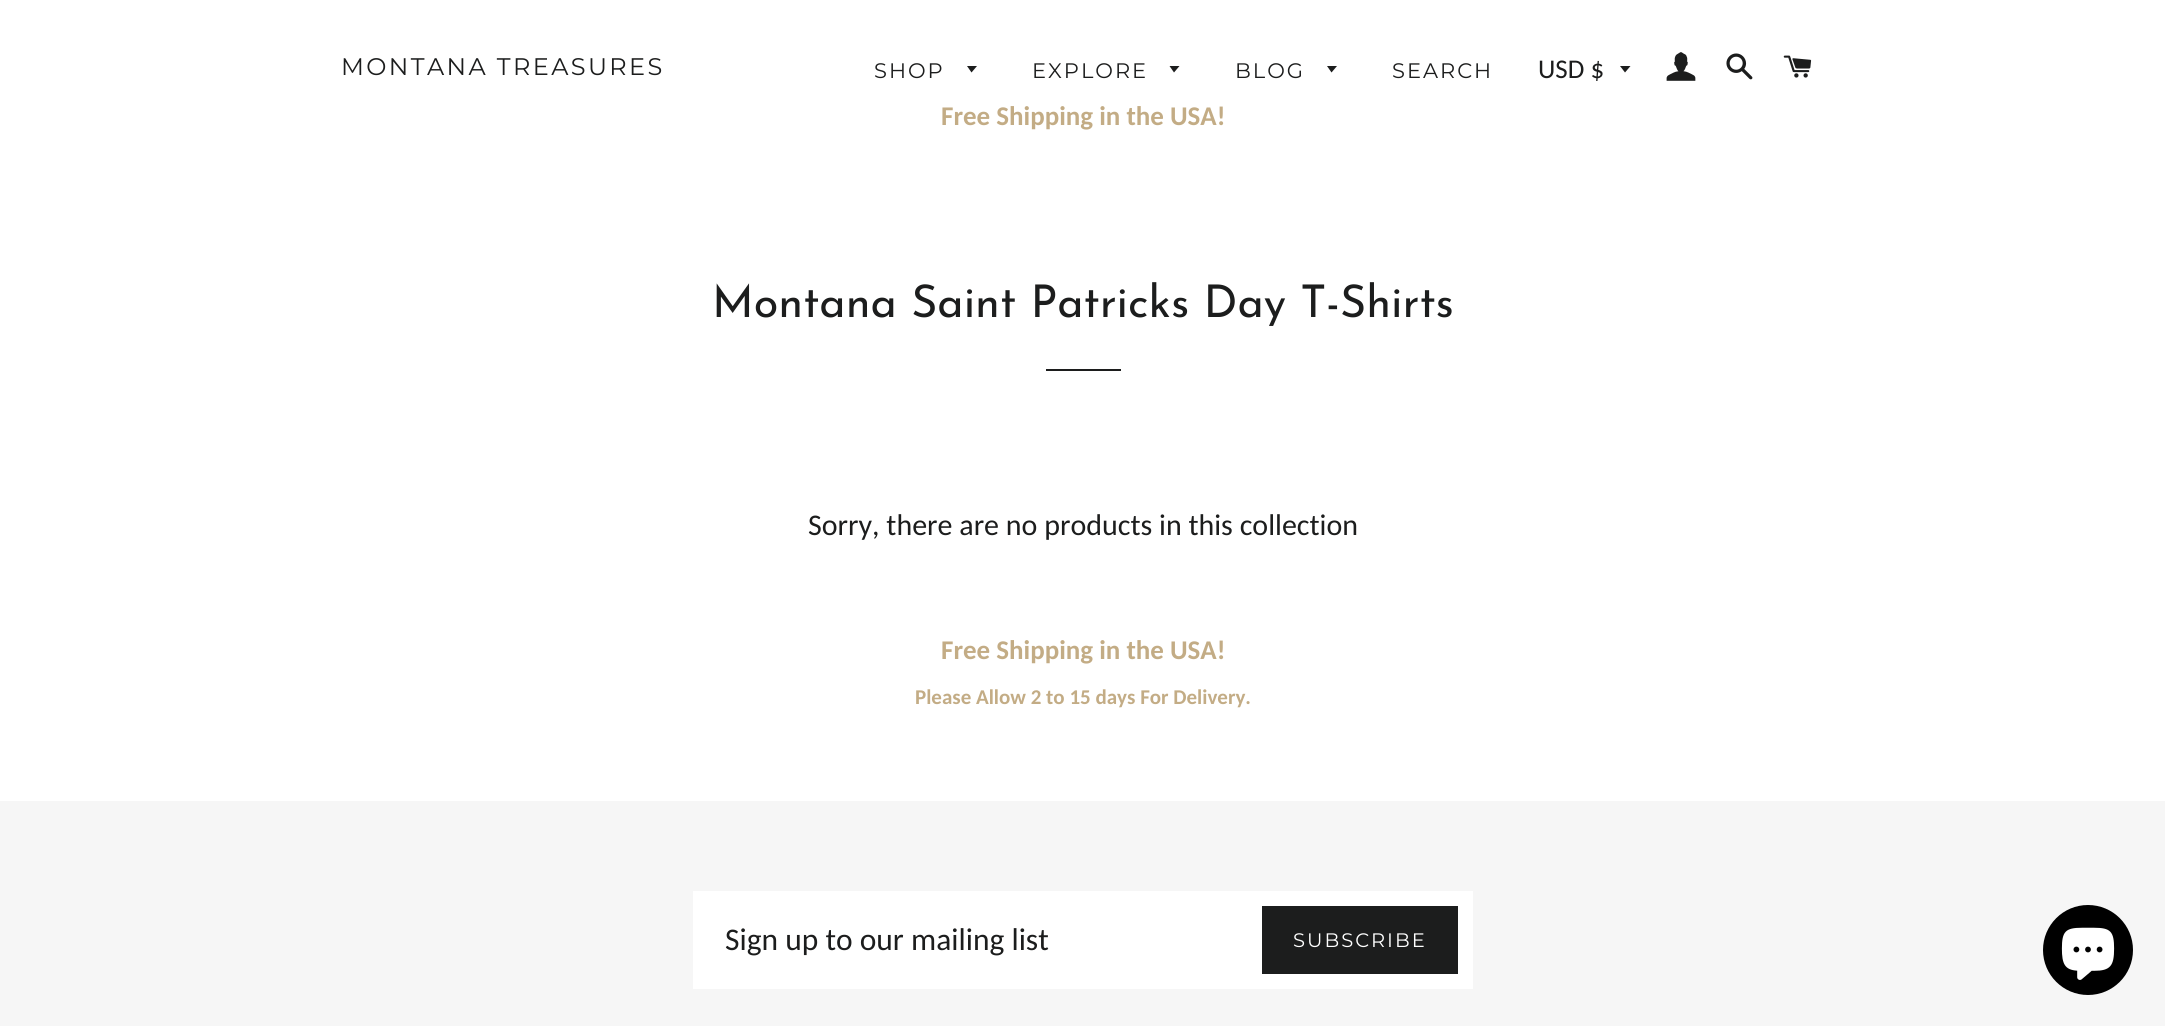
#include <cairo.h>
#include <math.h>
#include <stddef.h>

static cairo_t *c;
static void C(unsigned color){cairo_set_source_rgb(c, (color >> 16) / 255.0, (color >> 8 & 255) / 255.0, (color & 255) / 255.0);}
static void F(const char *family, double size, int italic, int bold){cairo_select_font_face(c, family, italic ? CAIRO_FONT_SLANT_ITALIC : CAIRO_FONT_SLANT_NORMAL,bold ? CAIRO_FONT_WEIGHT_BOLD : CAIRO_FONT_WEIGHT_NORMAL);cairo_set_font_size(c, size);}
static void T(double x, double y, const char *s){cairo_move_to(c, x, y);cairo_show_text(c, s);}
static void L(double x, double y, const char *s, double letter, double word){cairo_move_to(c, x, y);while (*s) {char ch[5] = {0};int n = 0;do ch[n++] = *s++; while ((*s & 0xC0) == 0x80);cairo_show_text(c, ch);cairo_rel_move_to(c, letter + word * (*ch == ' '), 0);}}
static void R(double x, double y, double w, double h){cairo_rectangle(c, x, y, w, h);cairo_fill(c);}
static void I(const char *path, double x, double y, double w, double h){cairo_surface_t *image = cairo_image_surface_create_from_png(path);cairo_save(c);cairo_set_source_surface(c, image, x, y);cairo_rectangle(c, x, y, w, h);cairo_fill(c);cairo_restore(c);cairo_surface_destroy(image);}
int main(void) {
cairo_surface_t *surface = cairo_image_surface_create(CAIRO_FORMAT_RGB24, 2165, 1026);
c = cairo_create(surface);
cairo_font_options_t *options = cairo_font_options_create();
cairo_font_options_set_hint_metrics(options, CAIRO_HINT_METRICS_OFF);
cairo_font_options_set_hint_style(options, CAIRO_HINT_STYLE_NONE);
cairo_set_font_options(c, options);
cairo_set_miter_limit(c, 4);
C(0xffffff);
cairo_paint(c);
F("Montserrat Thin",24,0,0);
C(0x1c1d1d);
L(341,75,"MONTANA TREASURES",2.4,0);
F("Montserrat Thin",21,0,0);
L(874,78,"SHOP",2,0);
cairo_new_path(c);
cairo_move_to(c,967,66);
cairo_line_to(c,971.5,72.5);
cairo_line_to(c,977,66);
cairo_close_path(c);
cairo_fill(c);
L(1032,78,"EXPLORE",2,0);
cairo_new_path(c);
cairo_move_to(c,1169.5,66);
cairo_line_to(c,1174,72.5);
cairo_line_to(c,1179.5,66);
cairo_close_path(c);
cairo_fill(c);
L(1235,78,"BLOG",2,0);
cairo_new_path(c);
cairo_move_to(c,1327,66);
cairo_line_to(c,1331.5,72.5);
cairo_line_to(c,1337,66);
cairo_close_path(c);
cairo_fill(c);
L(1392,78,"SEARCH",2,0);
cairo_new_path(c);
cairo_move_to(c,1620,66);
cairo_line_to(c,1625,72.5);
cairo_line_to(c,1630.5,66);
cairo_close_path(c);
cairo_fill(c);
F("Carlito",27,0,0);
T(1538,78,"USD $");
I("1.png",1666,52,30,29);
I("2.png",1726,53,27,27);
I("3.png",1783,55,29,23);
F("Carlito",27,0,1);
C(0xc3ac85);
T(941,125,"Free Shipping in the USA!");
F("Josefin Sans Thin",45,0,0);
C(0x1c1d1d);
T(712,317,"Montana Saint Patricks Day T-Shirts");
R(1046,369,75,2);
F("Carlito",30,0,0);
T(808,535,"Sorry, there are no products in this collection");
F("Carlito",27,0,1);
C(0xc3ac85);
T(941,659,"Free Shipping in the USA!");
F("Carlito",21,0,1);
T(915,704,"Please Allow 2 to 15 days For Delivery.");
C(0xf6f6f6);
R(0,801,2165,225);
C(0xffffff);
R(693,891,780,98);
F("Carlito",31.5,0,0);
C(0x1c1d1d);
T(725,950,"Sign up to our mailing list");
R(1262,906,196,68);
F("Montserrat Thin",19.5,0,0);
C(0xffffff);
L(1293,947,"SUBSCRIBE",2,0);
C(0x000000);
cairo_new_path(c);
cairo_arc(c,2088,950,45,0,2 * M_PI);
cairo_fill(c);
I("4.png",2061,927,54,53);
cairo_surface_write_to_png(surface, "o.png");
cairo_font_options_destroy(options);
cairo_destroy(c);
cairo_surface_destroy(surface);
return 0;
}
